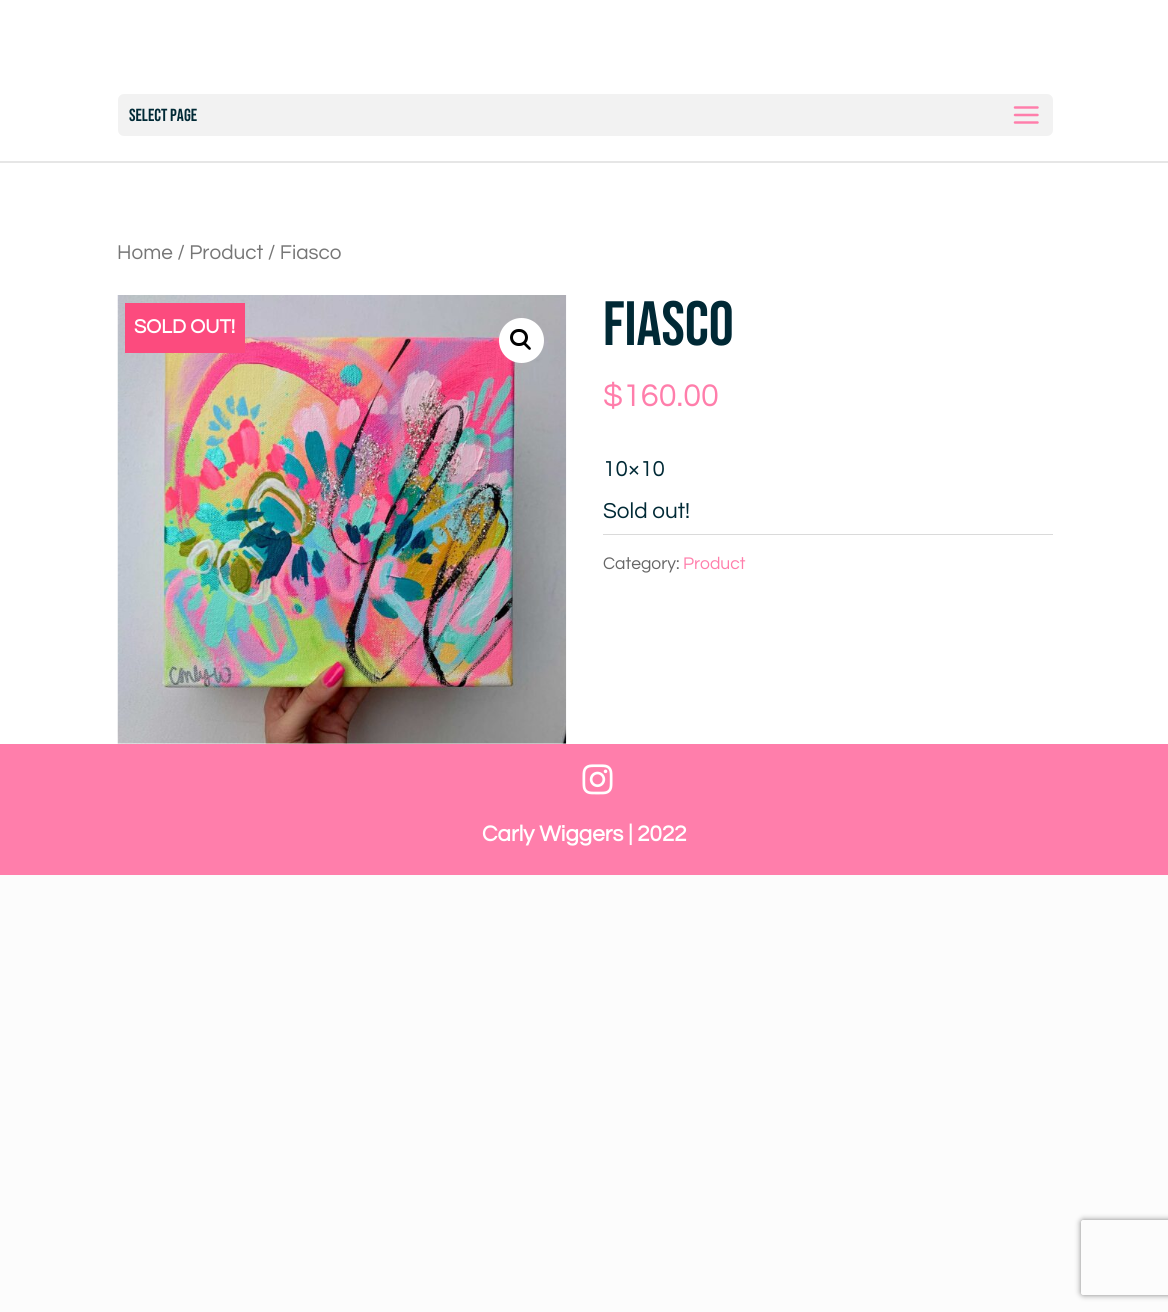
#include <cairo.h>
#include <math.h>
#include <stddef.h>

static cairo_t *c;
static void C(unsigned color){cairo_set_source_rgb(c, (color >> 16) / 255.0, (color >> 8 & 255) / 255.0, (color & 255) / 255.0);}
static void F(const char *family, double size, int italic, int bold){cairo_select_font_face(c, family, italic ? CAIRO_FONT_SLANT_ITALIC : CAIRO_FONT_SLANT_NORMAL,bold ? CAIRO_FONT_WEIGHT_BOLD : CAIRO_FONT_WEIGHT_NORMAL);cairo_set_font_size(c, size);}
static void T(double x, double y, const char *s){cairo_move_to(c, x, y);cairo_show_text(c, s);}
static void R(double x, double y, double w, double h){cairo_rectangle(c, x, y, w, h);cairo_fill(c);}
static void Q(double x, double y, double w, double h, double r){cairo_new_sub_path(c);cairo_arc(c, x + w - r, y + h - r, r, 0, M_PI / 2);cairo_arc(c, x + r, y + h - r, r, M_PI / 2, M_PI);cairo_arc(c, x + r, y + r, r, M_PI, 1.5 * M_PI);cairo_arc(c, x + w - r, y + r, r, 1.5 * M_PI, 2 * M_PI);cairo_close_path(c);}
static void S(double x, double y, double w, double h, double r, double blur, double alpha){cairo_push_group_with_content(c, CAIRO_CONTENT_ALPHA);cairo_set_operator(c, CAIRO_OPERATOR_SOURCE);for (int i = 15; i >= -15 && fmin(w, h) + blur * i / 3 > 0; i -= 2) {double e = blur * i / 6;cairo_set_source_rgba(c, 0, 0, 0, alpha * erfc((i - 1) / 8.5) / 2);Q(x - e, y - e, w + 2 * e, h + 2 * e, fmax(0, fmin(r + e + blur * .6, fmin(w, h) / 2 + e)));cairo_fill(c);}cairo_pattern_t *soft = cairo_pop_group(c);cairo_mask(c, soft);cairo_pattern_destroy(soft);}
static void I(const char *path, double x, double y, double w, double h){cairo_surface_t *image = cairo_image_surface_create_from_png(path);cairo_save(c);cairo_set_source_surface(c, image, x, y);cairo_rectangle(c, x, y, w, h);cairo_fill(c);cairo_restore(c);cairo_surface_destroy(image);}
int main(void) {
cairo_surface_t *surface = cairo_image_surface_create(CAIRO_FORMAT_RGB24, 1168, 1312);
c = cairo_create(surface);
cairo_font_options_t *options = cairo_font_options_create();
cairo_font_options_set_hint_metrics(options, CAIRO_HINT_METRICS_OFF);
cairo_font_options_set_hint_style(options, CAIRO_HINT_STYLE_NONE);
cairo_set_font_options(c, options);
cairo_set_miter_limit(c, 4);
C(0xfcfcfc);
cairo_paint(c);
C(0xe6e6e6);
cairo_new_path(c);
cairo_move_to(c,0,161);
cairo_line_to(c,0,163);
cairo_line_to(c,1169,163);
cairo_line_to(c,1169,1);
cairo_line_to(c,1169,161);
cairo_close_path(c);
cairo_fill(c);
C(0xffffff);
R(0,0,1168,161);
C(0xf2f2f2);
Q(118,94,935,42,6);
cairo_fill(c);
F("Bebas Neue",17.5,0,0);
C(0x002935);
T(129,121,"Select Page");
I("1.png",1013,106,26,18);
C(0xffffff);
R(0,163,1168,581);
F("Questrial",20.75,0,0);
C(0x767676);
T(117,259,"Home / Product / Fiasco");
I("2.png",117,295,450,449);
C(0xffffff);
cairo_arc(c,521.5,340.5,22.5,0,2 * M_PI);
cairo_fill(c);
Q(511.5,330.5,15,14,7);
C(0x000000);
cairo_set_line_width(c,3);
cairo_stroke(c);
cairo_new_path(c);
cairo_move_to(c,523.5,342.5);
cairo_curve_to(c,525,341,527,344.5,528,345);
cairo_curve_to(c,528.5,346,532,348,530.5,349.5);
cairo_curve_to(c,529,351,527,347.5,526,347);
cairo_curve_to(c,525.5,346,522,344,523.5,342.5);
cairo_close_path(c);
cairo_fill(c);
F("Bebas Neue",62.5,0,0);
C(0x002935);
T(603,345,"Fiasco");
F("Questrial",32.5,0,0);
C(0xff7eab);
T(603,406,"$160.00");
F("Questrial",22.5,0,0);
C(0x002935);
T(603,476,"10×10");
T(603,518,"Sold out!");
C(0xdadada);
R(603,534,450,1);
F("Questrial",17.5,0,0);
C(0x666666);
T(603,569,"Category:");
C(0xff7eab);
T(683,569,"Product");
C(0xfc4b7e);
R(125,303,120,50);
F("Questrial",20,0,1);
C(0xffffff);
T(134,333,"SOLD OUT!");
C(0xff7eab);
R(0,744,1168,131);
I("3.png",582,764,31,31);
F("Questrial",22.5,0,1);
C(0xffffff);
T(482,841,"Carly Wiggers | 2022");
cairo_save(c);
cairo_set_fill_rule(c,CAIRO_FILL_RULE_EVEN_ODD);
cairo_new_path(c);
cairo_move_to(c,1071,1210);
cairo_line_to(c,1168,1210);
cairo_line_to(c,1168,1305);
cairo_line_to(c,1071,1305);
cairo_close_path(c);
cairo_move_to(c,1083.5,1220);
cairo_line_to(c,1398.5,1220);
cairo_curve_to(c,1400,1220,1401,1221,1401,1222.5);
cairo_line_to(c,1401,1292.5);
cairo_curve_to(c,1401,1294,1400,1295,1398.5,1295);
cairo_line_to(c,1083.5,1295);
cairo_curve_to(c,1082,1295,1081,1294,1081,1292.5);
cairo_line_to(c,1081,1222.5);
cairo_curve_to(c,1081,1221,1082,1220,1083.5,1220);
cairo_close_path(c);
cairo_clip(c);
C(0x808080);
S(1081,1220,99,75,2.5,3,1);
cairo_restore(c);
cairo_surface_write_to_png(surface, "o.png");
cairo_font_options_destroy(options);
cairo_destroy(c);
cairo_surface_destroy(surface);
return 0;
}
